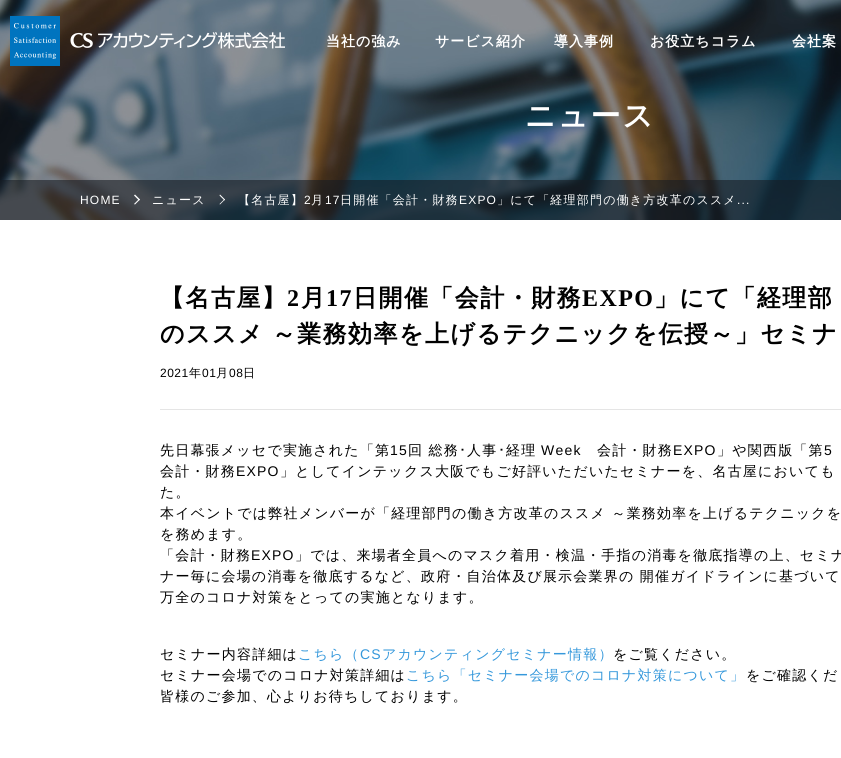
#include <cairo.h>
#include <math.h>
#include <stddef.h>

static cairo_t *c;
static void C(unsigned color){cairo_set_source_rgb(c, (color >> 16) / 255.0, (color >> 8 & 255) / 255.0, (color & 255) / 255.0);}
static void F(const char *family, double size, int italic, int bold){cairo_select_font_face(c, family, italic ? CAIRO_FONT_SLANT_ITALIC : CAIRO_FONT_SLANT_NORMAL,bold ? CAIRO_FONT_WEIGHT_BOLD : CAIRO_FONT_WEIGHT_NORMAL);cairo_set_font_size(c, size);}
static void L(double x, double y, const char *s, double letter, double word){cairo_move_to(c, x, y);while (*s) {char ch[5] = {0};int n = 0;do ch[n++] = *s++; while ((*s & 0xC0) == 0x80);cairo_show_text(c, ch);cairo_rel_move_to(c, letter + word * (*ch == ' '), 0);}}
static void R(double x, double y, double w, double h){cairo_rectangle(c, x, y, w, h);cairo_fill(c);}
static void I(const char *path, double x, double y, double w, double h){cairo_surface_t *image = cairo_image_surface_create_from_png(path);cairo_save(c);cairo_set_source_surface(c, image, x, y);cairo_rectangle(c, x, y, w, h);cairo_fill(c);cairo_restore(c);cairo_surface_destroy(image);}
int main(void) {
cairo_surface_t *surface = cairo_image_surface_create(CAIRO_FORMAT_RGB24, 841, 758);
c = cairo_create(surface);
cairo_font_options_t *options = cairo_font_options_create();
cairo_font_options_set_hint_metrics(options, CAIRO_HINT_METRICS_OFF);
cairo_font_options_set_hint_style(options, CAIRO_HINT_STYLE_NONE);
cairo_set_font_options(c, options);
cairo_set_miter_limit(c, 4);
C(0xffffff);
cairo_paint(c);
I("2.png",0,0,841,220);
I("1.png",10,16,275,50);
F("WenQuanYi Zen Hei",14,0,1);
C(0xffffff);
L(326,46,"当社の強み",1,0);
L(435,46,"サービス紹介",1,0);
L(554,46,"導入事例",1,0);
L(650,46,"お役立ちコラム",1,0);
L(792,46,"会社案",1,0);
F("WenQuanYi Zen Hei",30,0,1);
L(525,126,"ニュース",2,0);
cairo_set_source_rgba(c,0.09,0.11,0.133,0.6);
R(0,180,841,40);
F("Liberation Sans",12,0,0);
C(0xffffff);
L(80,204,"HOME",1.2,0);
cairo_new_path(c);
cairo_move_to(c,135,194.5);
cairo_line_to(c,140,199.5);
cairo_line_to(c,139,200.5);
cairo_line_to(c,134,195.5);
cairo_close_path(c);
cairo_fill(c);
cairo_new_path(c);
cairo_move_to(c,139,199);
cairo_line_to(c,140,199.5);
cairo_line_to(c,135,204.5);
cairo_line_to(c,134,204);
cairo_close_path(c);
cairo_fill(c);
F("WenQuanYi Zen Hei Medium",12,0,0);
L(152,204,"ニュース",1.2,0);
cairo_new_path(c);
cairo_move_to(c,220,194.5);
cairo_line_to(c,225,199.5);
cairo_line_to(c,224.5,200.5);
cairo_line_to(c,219.5,195.5);
cairo_close_path(c);
cairo_fill(c);
cairo_new_path(c);
cairo_move_to(c,224.5,199);
cairo_line_to(c,225,199.5);
cairo_line_to(c,220,204.5);
cairo_line_to(c,219.5,204);
cairo_close_path(c);
cairo_fill(c);
L(238,204,"【名古屋】",1.2,0);
F("Liberation Sans",12,0,0);
L(304,204,"2",1.2,0);
F("WenQuanYi Zen Hei Medium",12,0,0);
L(311,204,"月",1.2,0);
F("Liberation Sans",12,0,0);
L(325,204,"17",1.2,0);
F("WenQuanYi Zen Hei Medium",12,0,0);
L(340,204,"日開催「会計・財務",1.2,0);
F("Liberation Sans",12,0,0);
L(459,204,"EXPO",1.2,0);
F("WenQuanYi Zen Hei Medium",12,0,0);
L(497,204,"」にて「経理部門の働き方改革のススメ",1.2,0);
F("Liberation Sans",12,0,0);
L(737,204,"...",1.2,0);
C(0xe5e5e5);
R(160,409,681,1);
F("WenQuanYi Zen Hei",24,0,1);
C(0x000000);
L(160,306,"【名古屋】",1.45,0);
F("Liberation Serif",24,0,1);
L(287,306,"2",1.45,0);
F("WenQuanYi Zen Hei",24,0,1);
L(301,306,"月",1.45,0);
F("Liberation Serif",24,0,1);
L(326,306,"17",1.45,0);
F("WenQuanYi Zen Hei",24,0,1);
L(353,306,"日開催「会計・財務",1.45,0);
F("Liberation Serif",24,0,1);
L(582,306,"EXPO",1.45,0);
F("WenQuanYi Zen Hei",24,0,1);
L(654,306,"」にて「経理部",1.45,0);
L(160,342,"のススメ ～業務効率を上げるテクニックを伝授～」セミナ",1.45,-1);
F("Liberation Sans",12,0,0);
L(160,377,"2021",.5,0);
F("WenQuanYi Zen Hei Medium",12,0,0);
L(189,377,"年",.5,0);
F("Liberation Sans",12,0,0);
L(202,377,"01",.5,0);
F("WenQuanYi Zen Hei Medium",12,0,0);
L(216,377,"月",.5,0);
F("Liberation Sans",12,0,0);
L(229,377,"08",.5,0);
F("WenQuanYi Zen Hei Medium",12,0,0);
L(243,377,"日",.5,0);
F("WenQuanYi Zen Hei Medium",14,0,0);
L(160,455,"先日幕張メッセで実施された「第",1.2,0);
F("Liberation Sans",14,0,0);
L(390,455,"15",1.2,0);
F("WenQuanYi Zen Hei Medium",14,0,0);
L(408,455,"回 総務",1.2,0);
F("IPAPGothic",14,0,0);
L(459,455,"･",1.2,0);
F("WenQuanYi Zen Hei Medium",14,0,0);
L(467,455,"人事",1.2,0);
F("IPAPGothic",14,0,0);
L(498,455,"･",1.2,0);
F("WenQuanYi Zen Hei Medium",14,0,0);
L(506,455,"経理",1.2,0);
F("Liberation Sans",14,0,0);
L(541,455,"Week",1.2,0);
F("WenQuanYi Zen Hei Medium",14,0,0);
L(597,455,"会計・財務",1.2,0);
F("Liberation Sans",14,0,0);
L(673,455,"EXPO",1.2,0);
F("WenQuanYi Zen Hei Medium",14,0,0);
L(717,455,"」や関西版「第",1.2,0);
F("Liberation Sans",14,0,0);
L(824,455,"5",1.2,0);
F("WenQuanYi Zen Hei Medium",14,0,0);
L(160,476,"会計・財務",1.2,0);
F("Liberation Sans",14,0,0);
L(236,476,"EXPO",1.2,0);
F("WenQuanYi Zen Hei Medium",14,0,0);
L(280,476,"」としてインテックス大阪でもご好評いただいたセミナーを、名古屋においても",1.2,0);
L(160,497,"た。",1.2,0);
L(160,518,"本イベントでは弊社メンバーが「経理部門の働き方改革のススメ ～業務効率を上げるテクニックを",1.2,0);
L(160,539,"を務めます。",1.2,0);
L(160,560,"「会計・財務",1.2,0);
F("Liberation Sans",14,0,0);
L(251,560,"EXPO",1.2,0);
F("WenQuanYi Zen Hei Medium",14,0,0);
L(295,560,"」では、来場者全員へのマスク着用・検温・手指の消毒を徹底指導の上、セミナ",1.2,0);
L(160,581,"ナー毎に会場の消毒を徹底するなど、",1.2,0);
L(421,581,"政府・自治体及び展示会業界の 開催ガイドラインに基づいて",1.2,0);
L(160,602,"万全のコロナ対策をとっての実施となります。",1.2,0);
L(160,659,"セミナー内容詳細は",1.2,0);
C(0x3598db);
L(298,659,"こちら（",1.2,0);
F("Liberation Sans",14,0,0);
L(360,659,"CS",1.2,0);
F("WenQuanYi Zen Hei Medium",14,0,0);
L(382,659,"アカウンティングセミナー情報）",1.2,0);
C(0x000000);
L(613,659,"をご覧ください。",1.2,0);
L(160,680,"セミナー会場でのコロナ対策詳細は",1.2,0);
C(0x3598db);
L(406,680,"こちら「セミナー会場でのコロナ対策について」",1.2,0);
C(0x000000);
L(746,680,"をご確認くだ",1.2,0);
L(160,701,"皆様のご参加、心よりお待ちしております。",1.2,0);
cairo_surface_write_to_png(surface, "o.png");
cairo_font_options_destroy(options);
cairo_destroy(c);
cairo_surface_destroy(surface);
return 0;
}
